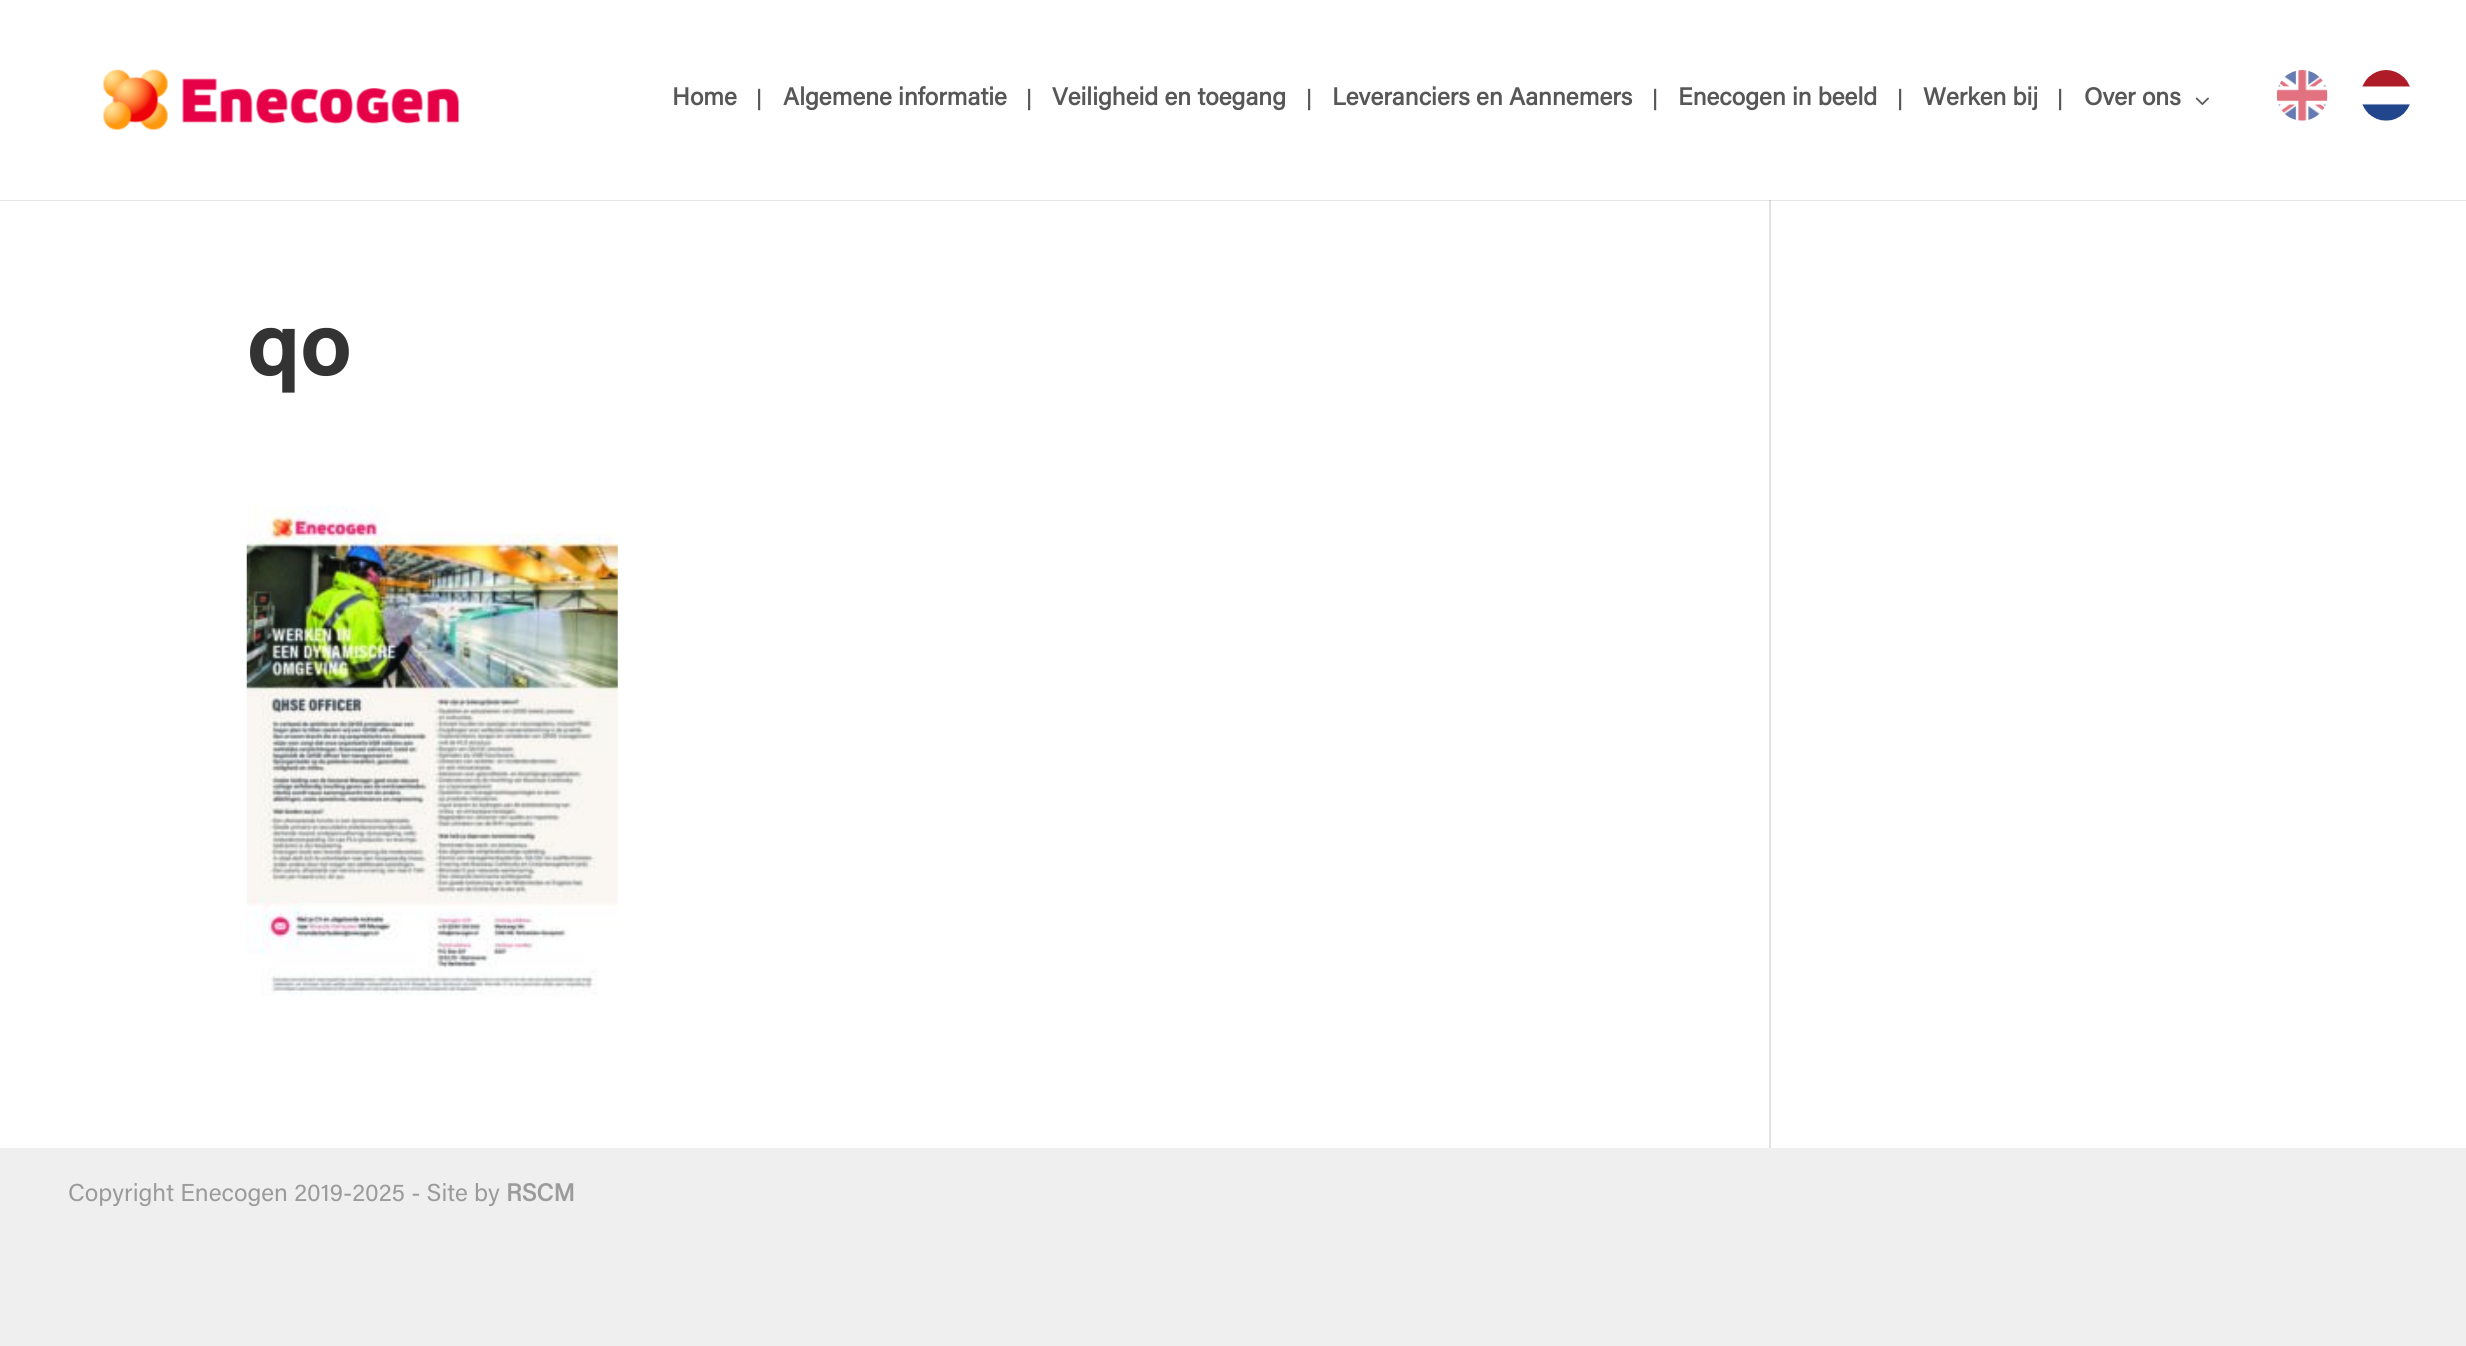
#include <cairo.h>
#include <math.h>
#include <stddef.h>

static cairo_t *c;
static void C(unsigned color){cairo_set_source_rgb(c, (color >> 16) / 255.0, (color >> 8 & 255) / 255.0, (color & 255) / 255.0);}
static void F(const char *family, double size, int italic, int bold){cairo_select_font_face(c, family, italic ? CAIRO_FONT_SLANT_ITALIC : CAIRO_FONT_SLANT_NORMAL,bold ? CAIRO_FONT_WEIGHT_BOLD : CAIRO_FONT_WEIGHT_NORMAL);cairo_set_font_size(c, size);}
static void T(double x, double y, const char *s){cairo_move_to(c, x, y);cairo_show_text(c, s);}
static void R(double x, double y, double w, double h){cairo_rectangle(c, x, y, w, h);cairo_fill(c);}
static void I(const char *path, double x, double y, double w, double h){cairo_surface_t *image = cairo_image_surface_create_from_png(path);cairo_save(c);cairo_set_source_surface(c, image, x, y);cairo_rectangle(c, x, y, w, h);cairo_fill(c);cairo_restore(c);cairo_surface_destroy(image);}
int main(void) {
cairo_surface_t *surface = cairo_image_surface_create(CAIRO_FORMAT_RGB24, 2466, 1346);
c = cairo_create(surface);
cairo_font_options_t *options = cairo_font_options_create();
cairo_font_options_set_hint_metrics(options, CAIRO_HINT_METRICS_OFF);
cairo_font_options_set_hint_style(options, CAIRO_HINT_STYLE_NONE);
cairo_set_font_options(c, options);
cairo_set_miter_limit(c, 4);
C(0xefefef);
cairo_paint(c);
C(0xffffff);
R(0,0,2466,1148);
C(0xe2e2e2);
R(1769,200,2,948);
cairo_set_source_rgba(c,0,0,0,0.1);
cairo_new_path(c);
cairo_move_to(c,0,200);
cairo_line_to(c,0,201);
cairo_line_to(c,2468,201);
cairo_line_to(c,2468,2);
cairo_line_to(c,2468,200);
cairo_close_path(c);
cairo_fill(c);
I("1.png",103,69,356,62);
F("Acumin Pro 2",24.5,0,1);
C(0x575757);
T(672,105,"Home");
F("Acumin Pro 2",20,0,1);
T(756,105,"|");
F("Acumin Pro 2",24.5,0,1);
T(783,105,"Algemene informatie");
F("Acumin Pro 2",20,0,1);
T(1026,105,"|");
F("Acumin Pro 2",24.5,0,1);
T(1052,105,"Veiligheid en toegang");
F("Acumin Pro 2",20,0,1);
T(1306,105,"|");
F("Acumin Pro 2",24.5,0,1);
T(1332,105,"Leveranciers en Aannemers");
F("Acumin Pro 2",20,0,1);
T(1652,105,"|");
F("Acumin Pro 2",24.5,0,1);
T(1678,105,"Enecogen in beeld");
F("Acumin Pro 2",20,0,1);
T(1897,105,"|");
F("Acumin Pro 2",24.5,0,1);
T(1923,105,"Werken bij");
F("Acumin Pro 2",20,0,1);
T(2057,105,"|");
F("Acumin Pro 2",24.5,0,1);
T(2084,105,"Over ons");
I("2.png",2195,97,14,8);
I("3.png",2276,70,52,51);
I("4.png",2362,70,48,51);
F("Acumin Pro",89,0,1);
C(0x333333);
T(247,375,"qo");
I("5.png",246,505,372,491);
F("Acumin Pro",24.5,0,0);
C(0x9b9b9b);
T(68,1201,"Copyright Enecogen 2019-2025 - Site by");
F("Acumin Pro 2",24.5,0,1);
T(506,1201,"RSCM");
cairo_surface_write_to_png(surface, "o.png");
cairo_font_options_destroy(options);
cairo_destroy(c);
cairo_surface_destroy(surface);
return 0;
}
